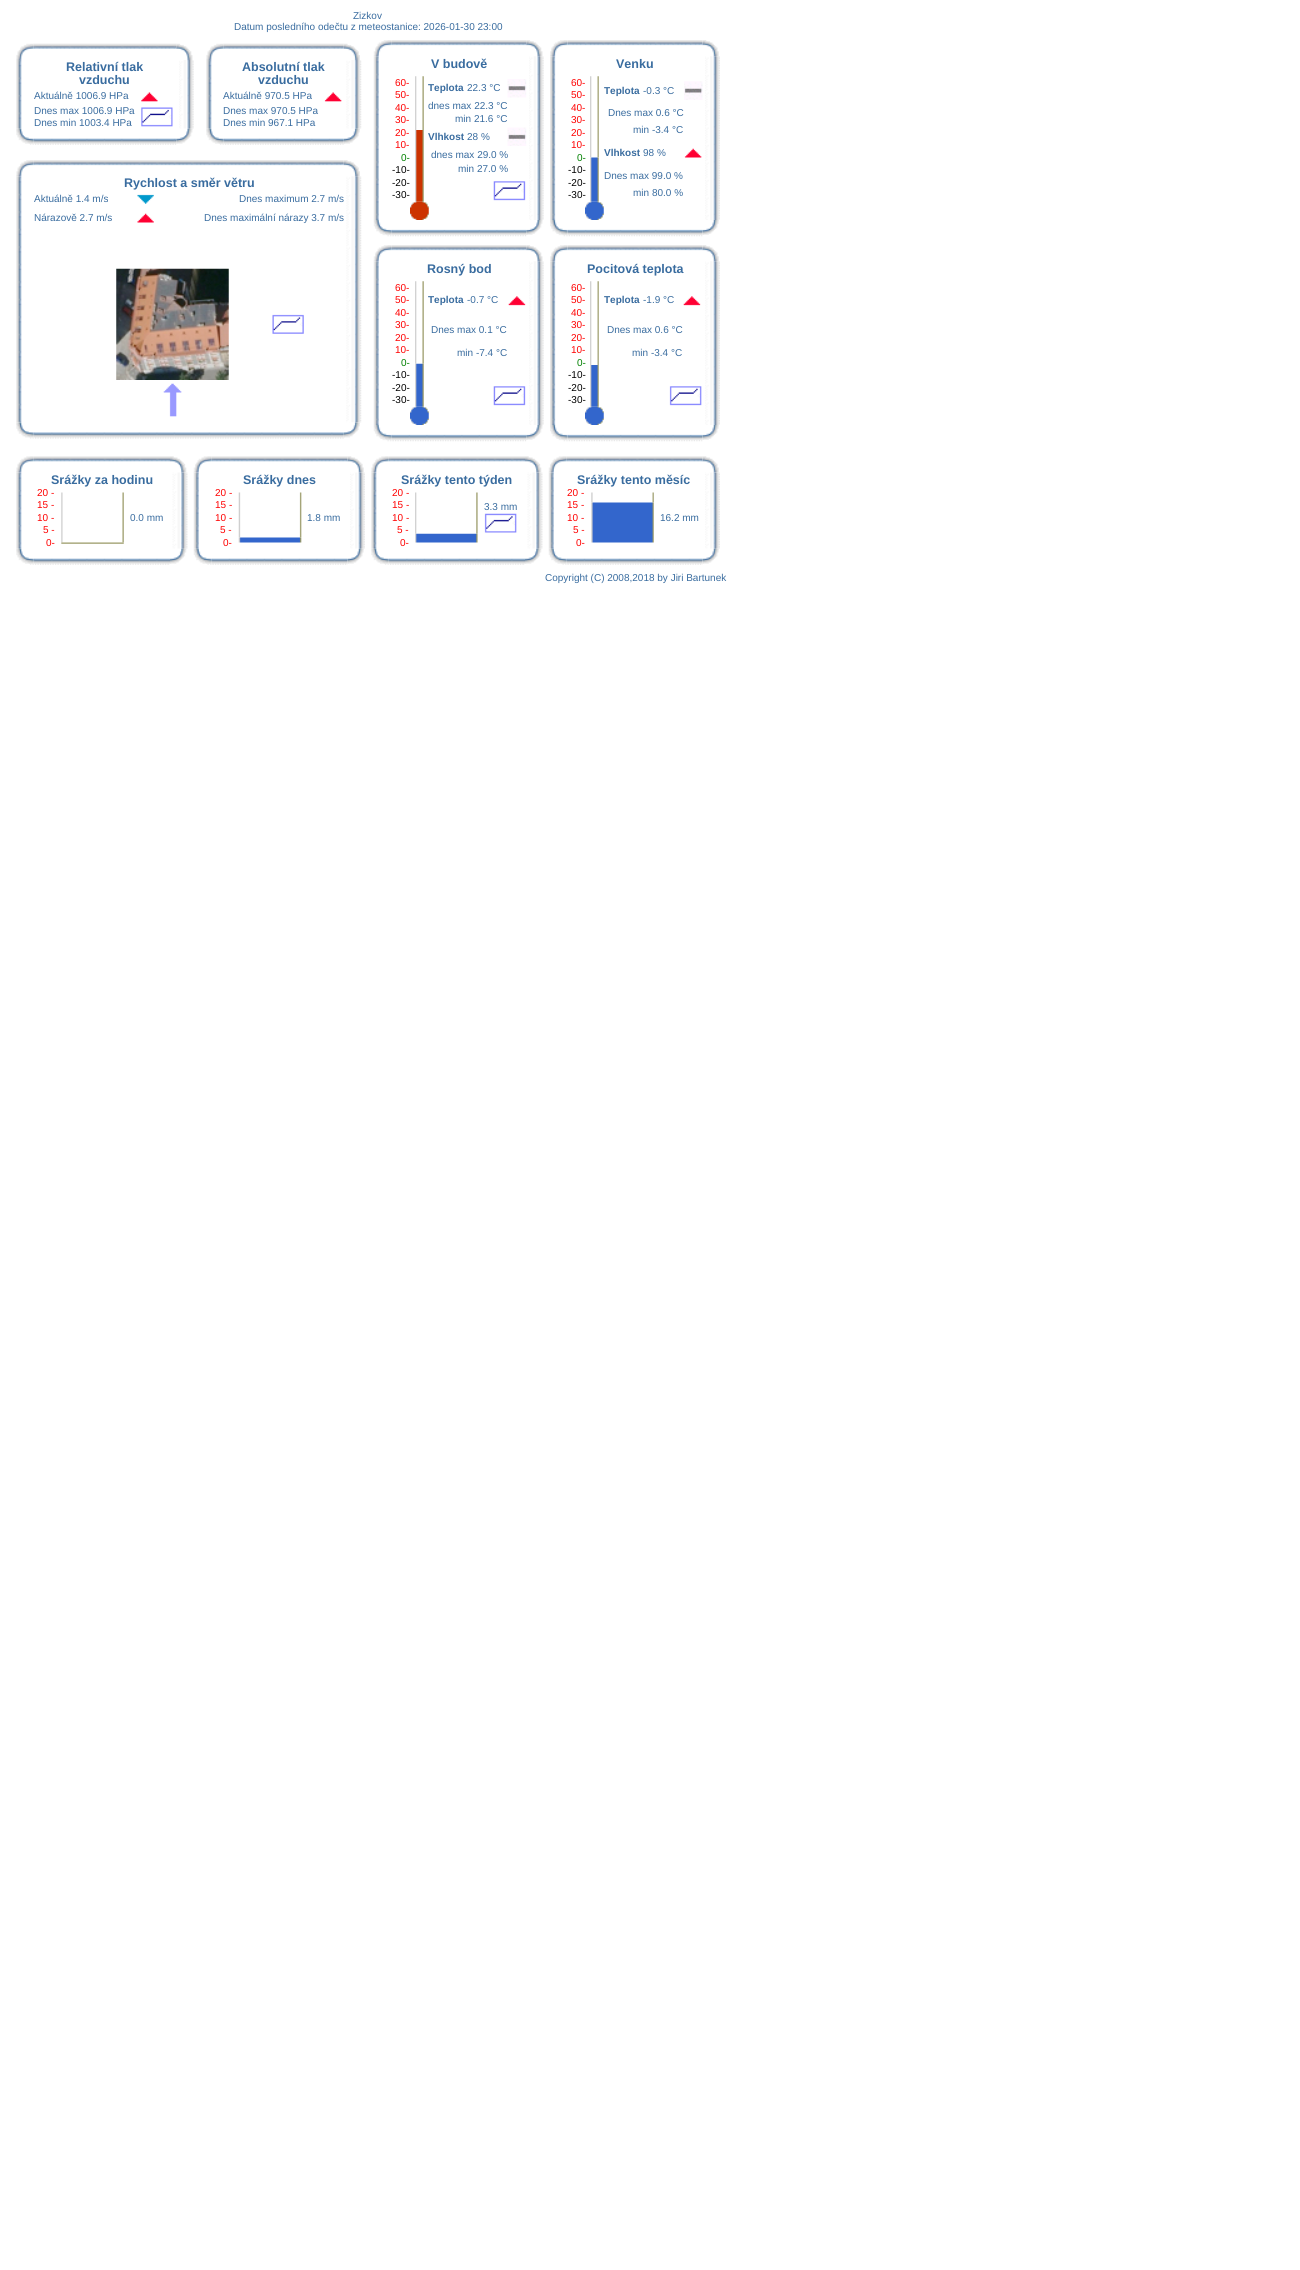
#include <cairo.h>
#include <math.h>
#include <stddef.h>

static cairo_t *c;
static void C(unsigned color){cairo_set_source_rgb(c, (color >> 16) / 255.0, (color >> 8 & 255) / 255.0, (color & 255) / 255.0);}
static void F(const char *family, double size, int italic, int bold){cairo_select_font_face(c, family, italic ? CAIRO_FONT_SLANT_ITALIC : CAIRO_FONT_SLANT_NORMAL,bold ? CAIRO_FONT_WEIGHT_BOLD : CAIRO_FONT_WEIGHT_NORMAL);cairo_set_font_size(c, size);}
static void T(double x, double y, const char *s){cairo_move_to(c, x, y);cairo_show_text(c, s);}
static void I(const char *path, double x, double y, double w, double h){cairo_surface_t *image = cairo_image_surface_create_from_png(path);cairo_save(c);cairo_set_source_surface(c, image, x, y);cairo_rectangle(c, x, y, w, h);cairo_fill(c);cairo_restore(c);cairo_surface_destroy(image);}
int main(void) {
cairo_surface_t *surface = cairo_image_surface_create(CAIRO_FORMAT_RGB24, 1300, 2270);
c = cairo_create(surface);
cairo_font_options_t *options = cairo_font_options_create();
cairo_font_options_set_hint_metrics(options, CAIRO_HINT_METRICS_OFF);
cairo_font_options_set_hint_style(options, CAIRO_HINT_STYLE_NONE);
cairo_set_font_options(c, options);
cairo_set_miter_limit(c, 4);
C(0xffffff);
cairo_paint(c);
F("Liberation Sans",10,0,0);
C(0x396c9f);
T(353,19,"Zizkov");
T(234,30,"Datum posledního odečtu z meteostanice: 2026-01-30 23:00");
I("2.png",33,43,144,6);
I("1.png",16,43,18,17);
I("3.png",176,43,17,17);
I("4.png",16,60,6,69);
F("Liberation Sans",12.5,0,1);
T(66,71,"Relativní tlak");
T(79,84,"vzduchu");
F("Liberation Sans",10,0,0);
T(34,99,"Aktuálně 1006.9 HPa");
I("5.png",141,92,17,10);
T(34,114,"Dnes max 1006.9 HPa");
I("6.png",141,107,32,20);
T(34,126,"Dnes min 1003.4 HPa");
I("7.png",179,60,15,69);
I("9.png",33,138,144,7);
I("8.png",16,128,18,17);
I("10.png",176,128,17,16);
I("11.png",223,43,121,6);
I("1.png",206,43,18,17);
I("12.png",343,43,17,17);
I("13.png",206,60,6,69);
F("Liberation Sans",12.5,0,1);
T(242,71,"Absolutní tlak");
T(258,84,"vzduchu");
F("Liberation Sans",10,0,0);
T(223,99,"Aktuálně 970.5 HPa");
I("14.png",324,92,18,10);
T(223,114,"Dnes max 970.5 HPa");
T(223,126,"Dnes min 967.1 HPa");
I("15.png",346,60,16,69);
I("16.png",223,138,121,7);
I("8.png",206,128,18,17);
I("17.png",343,128,17,16);
I("19.png",33,160,311,6);
I("21.png",16,176,6,247);
I("18.png",16,160,18,17);
I("27.png",346,176,16,247);
I("20.png",343,160,17,17);
F("Liberation Sans",12.5,0,1);
T(124,187,"Rychlost a směr větru");
F("Liberation Sans",10,0,0);
T(34,202,"Aktuálně 1.4 m/s");
I("22.png",137,194,17,10);
T(239,202,"Dnes maximum 2.7 m/s");
T(34,221,"Nárazově 2.7 m/s");
I("23.png",137,213,17,10);
T(204,221,"Dnes maximální nárazy 3.7 m/s");
I("24.png",116,268,113,112);
I("25.png",163,383,19,34);
I("26.png",272,314,32,20);
I("29.png",33,432,311,7);
I("28.png",16,422,18,17);
I("30.png",343,422,17,16);
I("32.png",391,40,136,6);
I("34.png",373,56,6,164);
I("31.png",373,40,19,17);
I("41.png",529,56,15,164);
I("33.png",526,40,17,17);
F("Liberation Sans",12.5,0,1);
T(431,68,"V budově");
F("Liberation Sans",10,0,0);
C(0xff0000);
T(395,86,"60-");
T(395,98,"50-");
T(395,111,"40-");
T(395,123,"30-");
T(395,136,"20-");
T(395,148,"10-");
C(0x008000);
T(401,161,"0-");
C(0x000000);
T(392,173,"-10-");
T(392,186,"-20-");
T(392,198,"-30-");
I("35.png",415,76,9,54);
F("Liberation Sans",10,0,1);
C(0x396c9f);
T(428,91,"Teplota");
F("Liberation Sans",10,0,0);
T(467,91,"22.3 °C");
I("36.png",507,79,20,19);
T(428,109,"dnes max 22.3 °C");
T(455,122,"min 21.6 °C");
F("Liberation Sans",10,0,1);
T(428,140,"Vlhkost");
F("Liberation Sans",10,0,0);
T(467,140,"28 %");
I("37.png",507,127,20,19);
T(431,158,"dnes max 29.0 %");
T(458,172,"min 27.0 %");
I("38.png",493,181,33,20);
I("39.png",415,130,9,72);
I("40.png",410,201,19,19);
I("43.png",391,229,136,8);
I("42.png",373,220,19,17);
I("44.png",526,220,17,15);
I("46.png",567,40,136,6);
I("48.png",550,56,6,164);
I("45.png",550,40,18,17);
I("54.png",705,56,15,164);
I("47.png",702,40,17,17);
F("Liberation Sans",12.5,0,1);
T(616,68,"Venku");
F("Liberation Sans",10,0,0);
C(0xff0000);
T(571,86,"60-");
T(571,98,"50-");
T(571,111,"40-");
T(571,123,"30-");
T(571,136,"20-");
T(571,148,"10-");
C(0x008000);
T(577,161,"0-");
C(0x000000);
T(568,173,"-10-");
T(568,186,"-20-");
T(568,198,"-30-");
I("49.png",590,76,9,82);
F("Liberation Sans",10,0,1);
C(0x396c9f);
T(604,94,"Teplota");
F("Liberation Sans",10,0,0);
T(643,94,"-0.3 °C");
I("50.png",684,81,19,19);
T(608,116,"Dnes max 0.6 °C");
T(633,133,"min -3.4 °C");
F("Liberation Sans",10,0,1);
T(604,156,"Vlhkost");
F("Liberation Sans",10,0,0);
T(643,156,"98 %");
I("51.png",684,148,18,10);
T(604,179,"Dnes max 99.0 %");
T(633,196,"min 80.0 %");
I("52.png",590,157,9,45);
I("53.png",585,201,19,19);
I("56.png",567,229,136,8);
I("55.png",550,220,18,17);
I("57.png",702,220,17,15);
I("58.png",391,245,136,6);
I("34.png",373,261,6,164);
I("31.png",373,245,19,17);
I("63.png",529,261,15,164);
I("33.png",526,245,17,17);
F("Liberation Sans",12.5,0,1);
T(427,273,"Rosný bod");
F("Liberation Sans",10,0,0);
C(0xff0000);
T(395,291,"60-");
T(395,303,"50-");
T(395,316,"40-");
T(395,328,"30-");
T(395,341,"20-");
T(395,353,"10-");
C(0x008000);
T(401,366,"0-");
C(0x000000);
T(392,378,"-10-");
T(392,391,"-20-");
T(392,403,"-30-");
I("59.png",415,281,9,83);
F("Liberation Sans",10,0,1);
C(0x396c9f);
T(428,303,"Teplota");
F("Liberation Sans",10,0,0);
T(467,303,"-0.7 °C");
I("60.png",508,296,18,10);
T(431,333,"Dnes max 0.1 °C");
T(457,356,"min -7.4 °C");
I("38.png",493,386,33,20);
I("61.png",415,363,9,44);
I("62.png",410,406,19,19);
I("64.png",391,434,136,8);
I("42.png",373,425,19,17);
I("44.png",526,425,17,15);
I("65.png",567,245,136,6);
I("48.png",550,261,6,164);
I("45.png",550,245,18,17);
I("69.png",705,261,15,164);
I("47.png",702,245,17,17);
F("Liberation Sans",12.5,0,1);
T(587,273,"Pocitová teplota");
F("Liberation Sans",10,0,0);
C(0xff0000);
T(571,291,"60-");
T(571,303,"50-");
T(571,316,"40-");
T(571,328,"30-");
T(571,341,"20-");
T(571,353,"10-");
C(0x008000);
T(577,366,"0-");
C(0x000000);
T(568,378,"-10-");
T(568,391,"-20-");
T(568,403,"-30-");
I("66.png",590,281,9,84);
F("Liberation Sans",10,0,1);
C(0x396c9f);
T(604,303,"Teplota");
F("Liberation Sans",10,0,0);
T(643,303,"-1.9 °C");
I("60.png",683,296,18,10);
T(607,333,"Dnes max 0.6 °C");
T(632,356,"min -3.4 °C");
I("67.png",669,386,33,20);
I("68.png",590,365,9,42);
I("53.png",585,406,19,19);
I("70.png",567,434,136,8);
I("55.png",550,425,18,17);
I("57.png",702,425,17,15);
I("72.png",33,456,137,6);
I("74.png",16,472,6,77);
I("71.png",16,456,18,17);
I("77.png",172,472,16,77);
I("73.png",170,456,17,17);
F("Liberation Sans",12.5,0,1);
T(51,484,"Srážky za hodinu");
F("Liberation Sans",10,0,0);
C(0xff0000);
T(37,496,"20 -");
T(37,508,"15 -");
T(37,521,"10 -");
T(43,533,"5 -");
T(46,546,"0-");
I("75.png",61,492,63,51);
I("76.png",61,542,63,2);
C(0x396c9f);
T(130,521,"0.0 mm");
I("79.png",33,558,137,7);
I("78.png",16,548,18,17);
I("80.png",170,548,17,16);
I("82.png",211,456,137,6);
I("84.png",193,472,6,77);
I("81.png",193,456,19,17);
I("87.png",350,472,15,77);
I("83.png",347,456,17,17);
F("Liberation Sans",12.5,0,1);
T(243,484,"Srážky dnes");
F("Liberation Sans",10,0,0);
C(0xff0000);
T(215,496,"20 -");
T(215,508,"15 -");
T(215,521,"10 -");
T(220,533,"5 -");
T(223,546,"0-");
I("85.png",238,492,64,46);
I("86.png",238,537,64,6);
C(0x396c9f);
T(307,521,"1.8 mm");
I("89.png",211,558,137,7);
I("88.png",193,548,19,17);
I("90.png",347,548,17,16);
I("91.png",388,456,137,6);
I("93.png",371,472,6,77);
I("71.png",371,456,18,17);
I("97.png",527,472,16,77);
I("92.png",525,456,17,17);
F("Liberation Sans",12.5,0,1);
T(401,484,"Srážky tento týden");
F("Liberation Sans",10,0,0);
C(0xff0000);
T(392,496,"20 -");
T(392,508,"15 -");
T(392,521,"10 -");
T(397,533,"5 -");
T(400,546,"0-");
I("94.png",415,492,63,42);
I("95.png",415,533,63,10);
C(0x396c9f);
T(484,510,"3.3 mm");
I("96.png",484,513,33,20);
I("79.png",388,558,137,7);
I("78.png",371,548,18,17);
I("98.png",525,548,17,16);
I("100.png",566,456,137,6);
I("102.png",548,472,6,77);
I("99.png",548,456,19,17);
I("87.png",705,472,15,77);
I("101.png",702,456,17,17);
F("Liberation Sans",12.5,0,1);
T(577,484,"Srážky tento měsíc");
F("Liberation Sans",10,0,0);
C(0xff0000);
T(567,496,"20 -");
T(567,508,"15 -");
T(567,521,"10 -");
T(573,533,"5 -");
T(576,546,"0-");
I("103.png",591,492,63,11);
I("104.png",591,502,63,41);
C(0x396c9f);
T(660,521,"16.2 mm");
I("89.png",566,558,137,7);
I("105.png",548,548,19,17);
I("106.png",702,548,17,16);
T(545,581,"Copyright (C) 2008,2018 by Jiri Bartunek");
cairo_surface_write_to_png(surface, "o.png");
cairo_font_options_destroy(options);
cairo_destroy(c);
cairo_surface_destroy(surface);
return 0;
}
